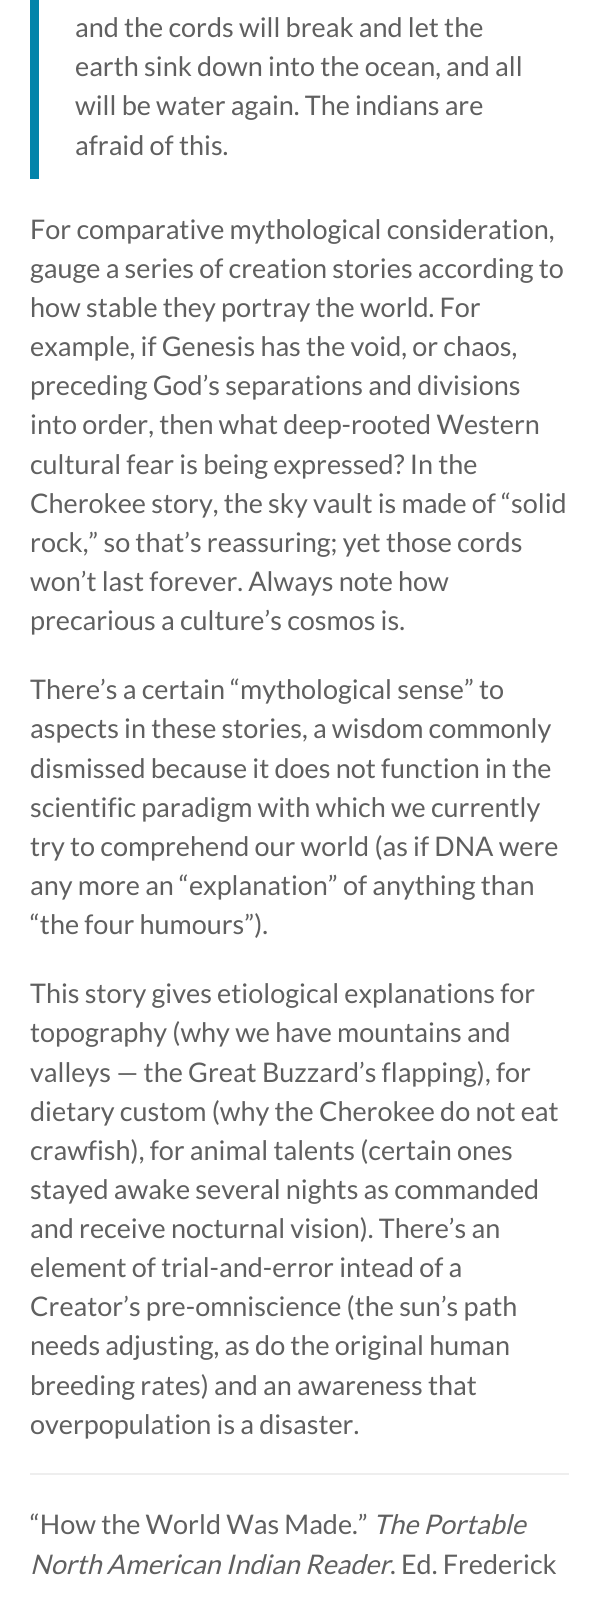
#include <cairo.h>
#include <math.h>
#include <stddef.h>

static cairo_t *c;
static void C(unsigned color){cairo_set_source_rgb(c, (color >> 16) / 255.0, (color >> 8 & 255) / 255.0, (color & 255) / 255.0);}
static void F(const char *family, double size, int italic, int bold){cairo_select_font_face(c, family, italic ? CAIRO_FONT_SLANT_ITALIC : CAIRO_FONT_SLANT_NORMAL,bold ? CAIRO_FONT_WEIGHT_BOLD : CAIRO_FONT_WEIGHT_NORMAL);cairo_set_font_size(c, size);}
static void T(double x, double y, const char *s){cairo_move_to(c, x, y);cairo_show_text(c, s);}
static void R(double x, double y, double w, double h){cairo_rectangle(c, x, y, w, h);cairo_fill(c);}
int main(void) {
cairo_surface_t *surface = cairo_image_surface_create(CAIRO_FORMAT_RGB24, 598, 1599);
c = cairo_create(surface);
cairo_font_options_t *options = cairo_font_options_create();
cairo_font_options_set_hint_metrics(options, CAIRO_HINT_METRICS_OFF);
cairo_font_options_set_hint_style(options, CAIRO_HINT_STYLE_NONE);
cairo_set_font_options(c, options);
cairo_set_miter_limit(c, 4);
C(0xffffff);
cairo_paint(c);
C(0x0284aa);
R(30,0,9,179);
F("Lato",27,0,0);
C(0x606060);
T(75,37,"and the cords will break and let the");
T(75,76,"earth sink down into the ocean, and all");
T(75,115,"will be water again. The indians are");
T(75,155,"afraid of this.");
T(30,239,"For comparative mythological consideration,");
T(30,278,"gauge a series of creation stories according to");
T(30,317,"how stable they portray the world. For");
T(30,356,"example, if Genesis has the void, or chaos,");
T(30,395,"preceding God’s separations and divisions");
T(30,434,"into order, then what deep-rooted Western");
T(30,474,"cultural fear is being expressed? In the");
T(30,513,"Cherokee story, the sky vault is made of “solid");
T(30,552,"rock,” so that’s reassuring; yet those cords");
T(30,591,"won’t last forever. Always note how");
T(30,630,"precarious a culture’s cosmos is.");
T(30,699,"There’s a certain “mythological sense” to");
T(30,738,"aspects in these stories, a wisdom commonly");
T(30,778,"dismissed because it does not function in the");
T(30,817,"scientific paradigm with which we currently");
T(30,856,"try to comprehend our world (as if DNA were");
T(30,895,"any more an “explanation” of anything than");
T(30,934,"“the four humours”).");
T(30,1003,"This story gives etiological explanations for");
T(30,1042,"topography (why we have mountains and");
T(30,1082,"valleys — the Great Buzzard’s flapping), for");
T(30,1121,"dietary custom (why the Cherokee do not eat");
T(30,1160,"crawfish), for animal talents (certain ones");
T(30,1199,"stayed awake several nights as commanded");
T(30,1238,"and receive nocturnal vision). There’s an");
T(30,1277,"element of trial-and-error intead of a");
T(30,1316,"Creator’s pre-omniscience (the sun’s path");
T(30,1355,"needs adjusting, as do the original human");
T(30,1395,"breeding rates) and an awareness that");
T(30,1434,"overpopulation is a disaster.");
C(0xeeeeee);
R(30,1473,539,2);
C(0x606060);
T(30,1534,"“How the World Was Made.”");
F("Lato",27,1,0);
T(373,1534,"The Portable");
T(30,1574,"North American Indian Reader");
F("Lato",27,0,0);
T(390,1574,". Ed. Frederick");
cairo_surface_write_to_png(surface, "o.png");
cairo_font_options_destroy(options);
cairo_destroy(c);
cairo_surface_destroy(surface);
return 0;
}
